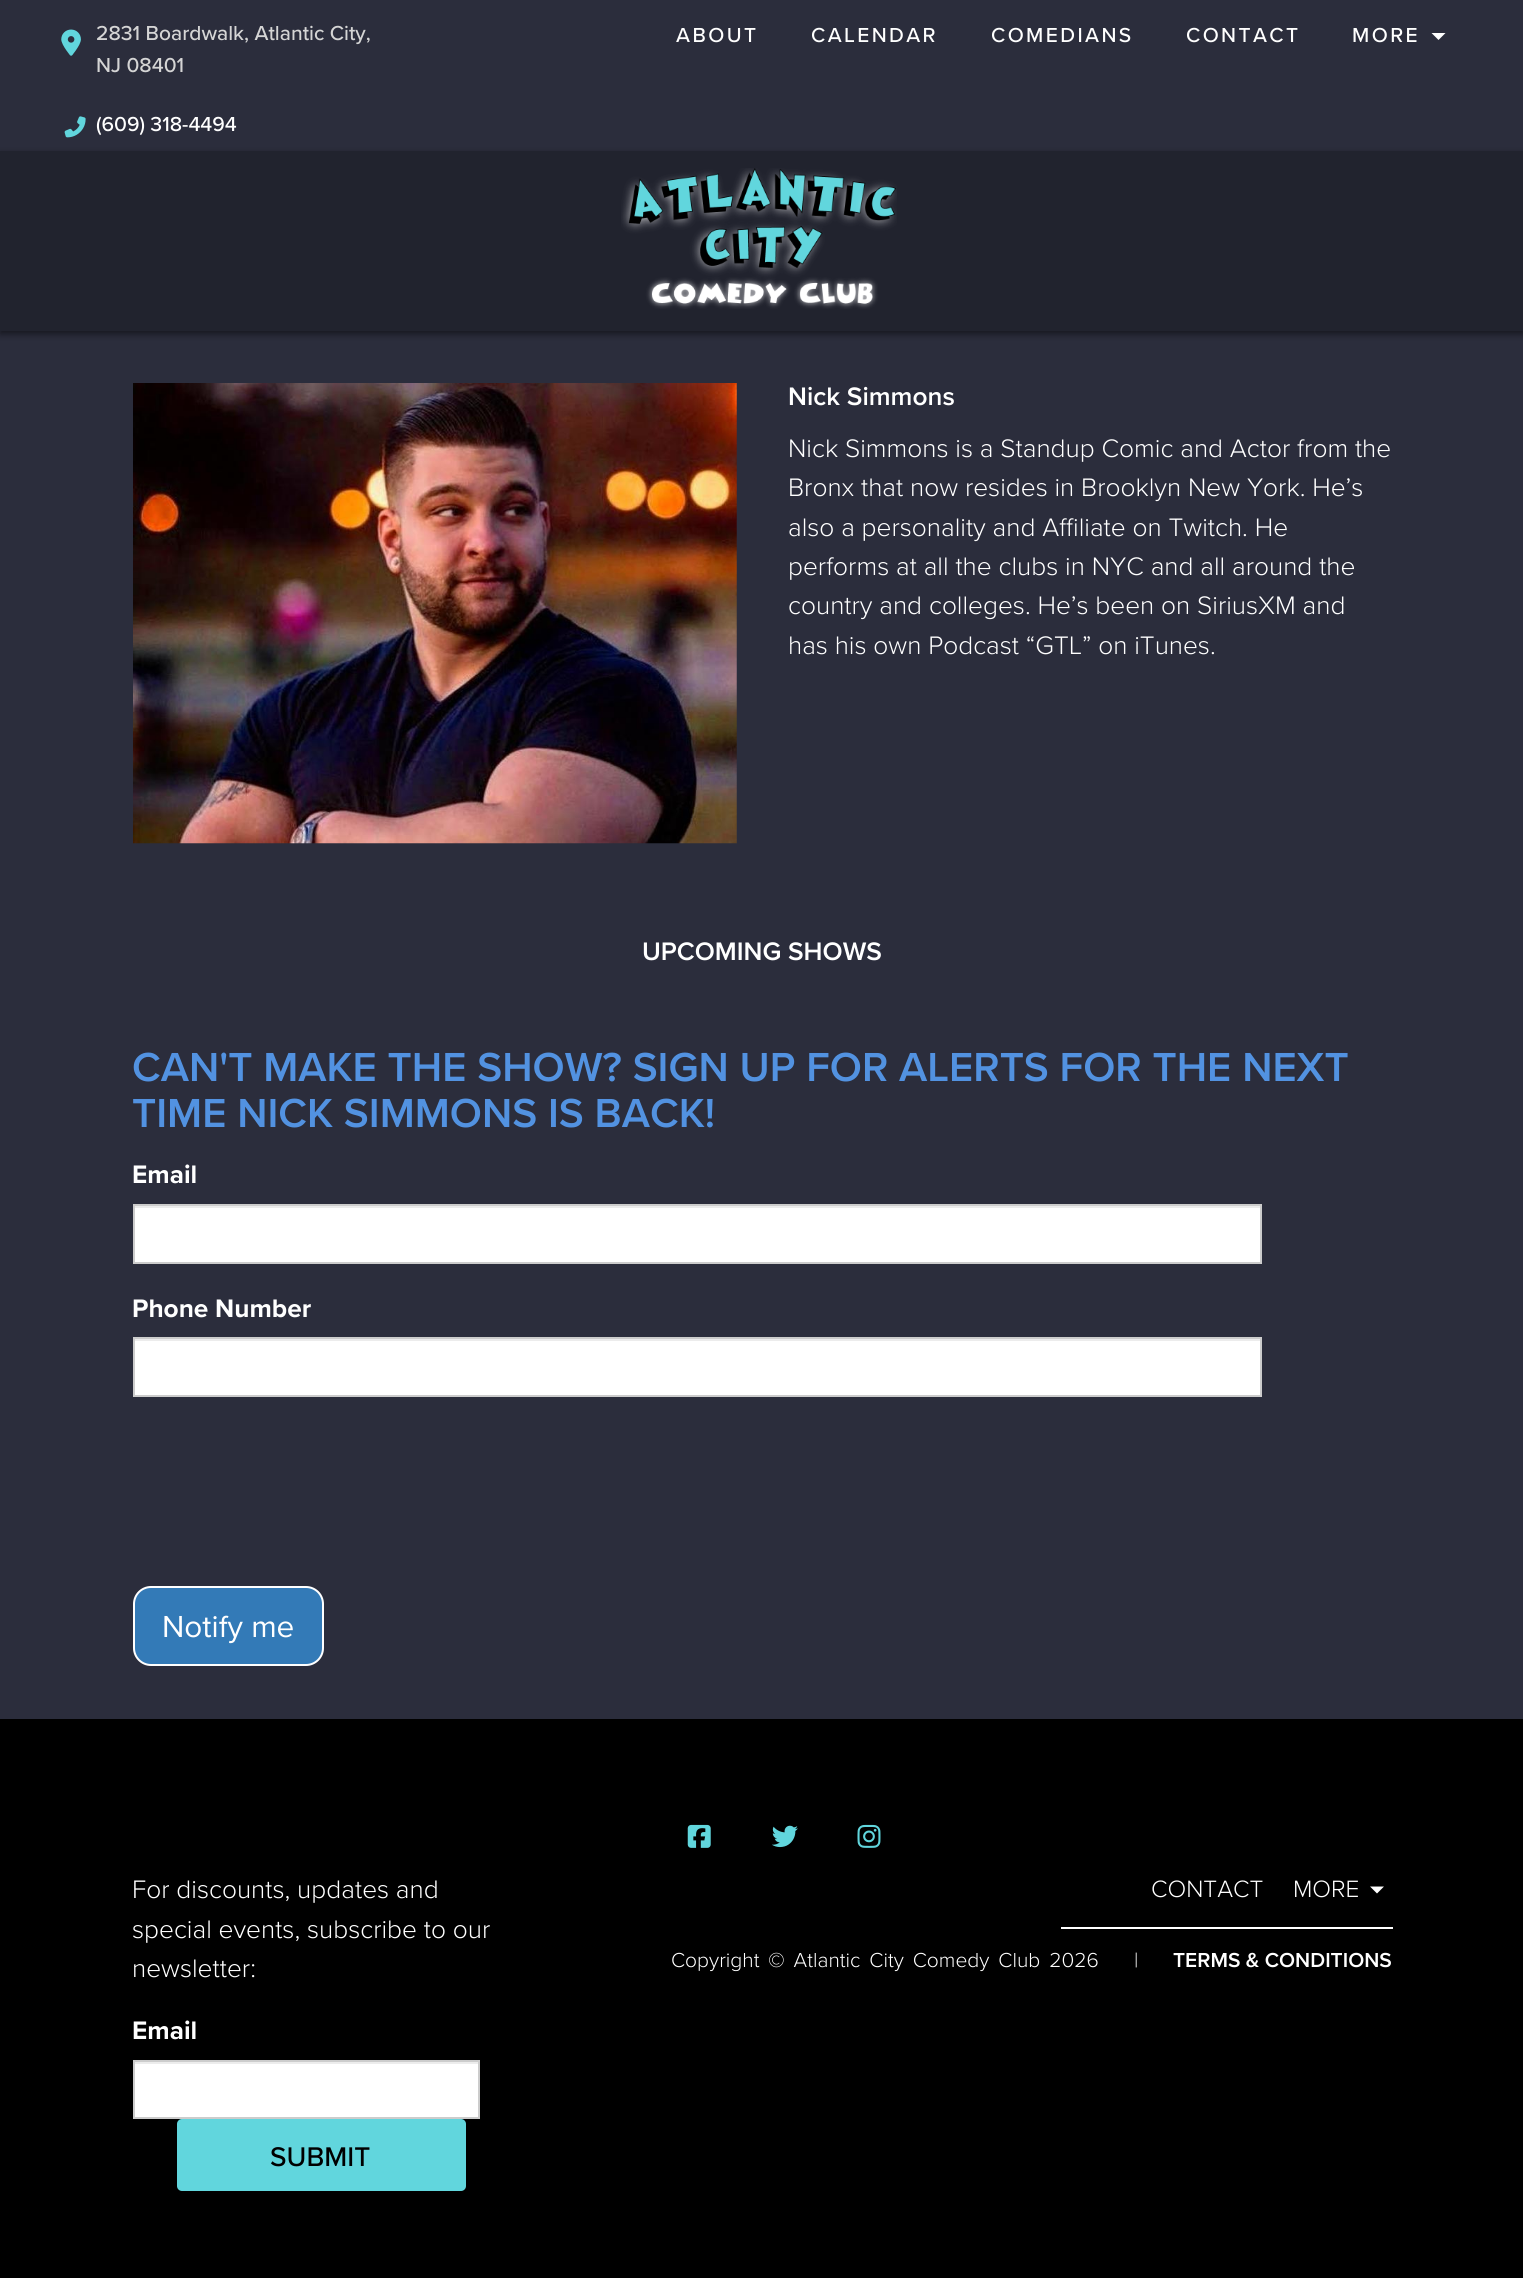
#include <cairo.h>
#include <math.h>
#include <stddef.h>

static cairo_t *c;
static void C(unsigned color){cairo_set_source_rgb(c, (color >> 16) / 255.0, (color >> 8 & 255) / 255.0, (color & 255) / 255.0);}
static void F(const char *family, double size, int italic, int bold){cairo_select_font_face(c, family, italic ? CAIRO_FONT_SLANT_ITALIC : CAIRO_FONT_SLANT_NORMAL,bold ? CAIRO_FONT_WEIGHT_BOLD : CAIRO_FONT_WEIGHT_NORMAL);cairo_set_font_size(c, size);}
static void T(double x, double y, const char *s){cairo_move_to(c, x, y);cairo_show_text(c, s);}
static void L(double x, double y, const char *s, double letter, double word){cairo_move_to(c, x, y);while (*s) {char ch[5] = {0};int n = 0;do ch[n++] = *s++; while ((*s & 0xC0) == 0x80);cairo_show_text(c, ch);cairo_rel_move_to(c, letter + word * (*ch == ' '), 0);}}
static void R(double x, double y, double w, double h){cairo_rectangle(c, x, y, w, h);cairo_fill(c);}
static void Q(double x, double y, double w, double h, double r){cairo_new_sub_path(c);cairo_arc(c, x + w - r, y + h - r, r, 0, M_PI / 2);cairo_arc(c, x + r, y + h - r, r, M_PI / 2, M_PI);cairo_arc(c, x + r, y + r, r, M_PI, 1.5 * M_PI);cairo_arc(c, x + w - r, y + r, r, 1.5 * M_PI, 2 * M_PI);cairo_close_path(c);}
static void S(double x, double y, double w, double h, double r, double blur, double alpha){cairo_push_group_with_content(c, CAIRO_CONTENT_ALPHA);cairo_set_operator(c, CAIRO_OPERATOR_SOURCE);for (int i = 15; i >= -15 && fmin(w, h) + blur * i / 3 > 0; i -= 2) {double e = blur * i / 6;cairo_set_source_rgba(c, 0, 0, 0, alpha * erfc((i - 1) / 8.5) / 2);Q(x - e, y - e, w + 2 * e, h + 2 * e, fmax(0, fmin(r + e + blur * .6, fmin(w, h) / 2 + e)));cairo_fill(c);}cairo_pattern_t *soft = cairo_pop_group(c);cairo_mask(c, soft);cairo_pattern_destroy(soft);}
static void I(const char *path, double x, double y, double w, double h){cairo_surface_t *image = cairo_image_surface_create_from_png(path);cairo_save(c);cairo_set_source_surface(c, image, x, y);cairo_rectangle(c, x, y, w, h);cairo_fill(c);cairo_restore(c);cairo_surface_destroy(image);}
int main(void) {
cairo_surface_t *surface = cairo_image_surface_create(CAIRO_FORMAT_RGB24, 1523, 2278);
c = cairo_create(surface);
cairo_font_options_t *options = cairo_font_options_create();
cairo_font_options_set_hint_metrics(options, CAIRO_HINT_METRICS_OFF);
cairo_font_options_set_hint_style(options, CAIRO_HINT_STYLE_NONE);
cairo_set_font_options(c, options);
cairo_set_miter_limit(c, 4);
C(0x2b2d3c);
cairo_paint(c);
I("1.png",61,29,20,27);
F("Proxima Nova Medium",21,0,0);
C(0xd5d5d5);
T(96,40,"2831 Boardwalk, Atlantic City,");
T(96,72,"NJ 08401");
I("2.png",64,116,22,22);
C(0xffffff);
T(96,131,"(609) 318-4494");
L(676,42,"ABOUT",2.4,0);
L(811,42,"CALENDAR",2.4,0);
L(991,42,"COMEDIANS",2.4,0);
L(1186,42,"CONTACT",2.4,0);
L(1352,42,"MORE",2.4,0);
cairo_new_path(c);
cairo_move_to(c,1431.5,33);
cairo_line_to(c,1445.5,33);
cairo_line_to(c,1438.5,40);
cairo_close_path(c);
cairo_fill(c);
C(0x000000);
S(0,154,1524,180,0,3.5,.5);
C(0x21232e);
R(0,151,1523,180);
I("3.png",621,168,276,141);
I("4.png",133,383,604,461);
F("Proxima Nova SemiBold",26.25,0,0);
C(0xffffff);
T(788,405,"Nick Simmons");
F("Proxima Nova Light",26.25,0,0);
T(788,457,"Nick Simmons is a Standup Comic and Actor from the");
T(788,496,"Bronx that now resides in Brooklyn New York. He’s");
T(788,536,"also a personality and Affiliate on Twitch. He");
T(788,575,"performs at all the clubs in NYC and all around the");
T(788,614,"country and colleges. He’s been on SiriusXM and");
T(788,654,"has his own Podcast “GTL” on iTunes.");
F("Proxima Nova SemiBold",26.25,0,0);
T(642,960,"UPCOMING SHOWS");
F("Proxima Nova SemiBold",42,0,0);
C(0x5292e1);
T(132,1081,"CAN'T MAKE THE SHOW? SIGN UP FOR ALERTS FOR THE NEXT");
T(132,1127,"TIME NICK SIMMONS IS BACK!");
F("Proxima Nova",26.25,0,1);
C(0xffffff);
T(132,1183,"Email");
R(135,1208,1125,54);
C(0xececec);
R(135,1206,1125,2);
cairo_rectangle(c,134,1205,1127,58);
C(0xcccccc);
cairo_stroke(c);
C(0xffffff);
T(132,1317,"Phone Number");
R(135,1341,1125,54);
C(0xececec);
R(135,1339,1125,2);
cairo_rectangle(c,134,1338,1127,58);
C(0xcccccc);
cairo_stroke(c);
C(0x337ab7);
Q(134,1587,189,78,17);
cairo_fill_preserve(c);
C(0xffffff);
cairo_stroke(c);
F("Proxima Nova",31.5,0,0);
T(162,1637,"Notify me");
C(0x000000);
R(0,1719,1523,559);
I("5.png",687,1824,24,24);
I("6.png",772,1825,26,23);
I("7.png",857,1824,24,24);
F("Proxima Nova Light",26.25,0,0);
C(0xffffff);
T(132,1898,"For discounts, updates and");
T(132,1938,"special events, subscribe to our");
T(132,1977,"newsletter:");
F("Proxima Nova",26.25,0,1);
T(132,2039,"Email");
R(135,2064,343,53);
C(0xececec);
R(135,2062,343,2);
cairo_rectangle(c,134,2061,345,57);
C(0xcccccc);
cairo_stroke(c);
C(0x61d6dd);
Q(177,2119,289,72,5);
cairo_fill(c);
F("Proxima Nova Medium",28,0,0);
C(0x000000);
T(270,2166,"SUBMIT");
C(0xffffff);
R(1061,1927,332,2);
F("Proxima Nova Light",24.5,0,0);
T(1151,1897,"CONTACT");
T(1293,1897,"MORE");
cairo_new_path(c);
cairo_move_to(c,1370,1886.5);
cairo_line_to(c,1384,1886.5);
cairo_line_to(c,1377,1893.5);
cairo_close_path(c);
cairo_fill(c);
F("Proxima Nova Light",21,0,0);
L(671,1967,"Copyright © Atlantic City Comedy Club 2026",0,3.5);
T(1134,1967,"|");
F("Proxima Nova SemiBold",21,0,0);
T(1173,1967,"TERMS & CONDITIONS");
cairo_surface_write_to_png(surface, "o.png");
cairo_font_options_destroy(options);
cairo_destroy(c);
cairo_surface_destroy(surface);
return 0;
}
